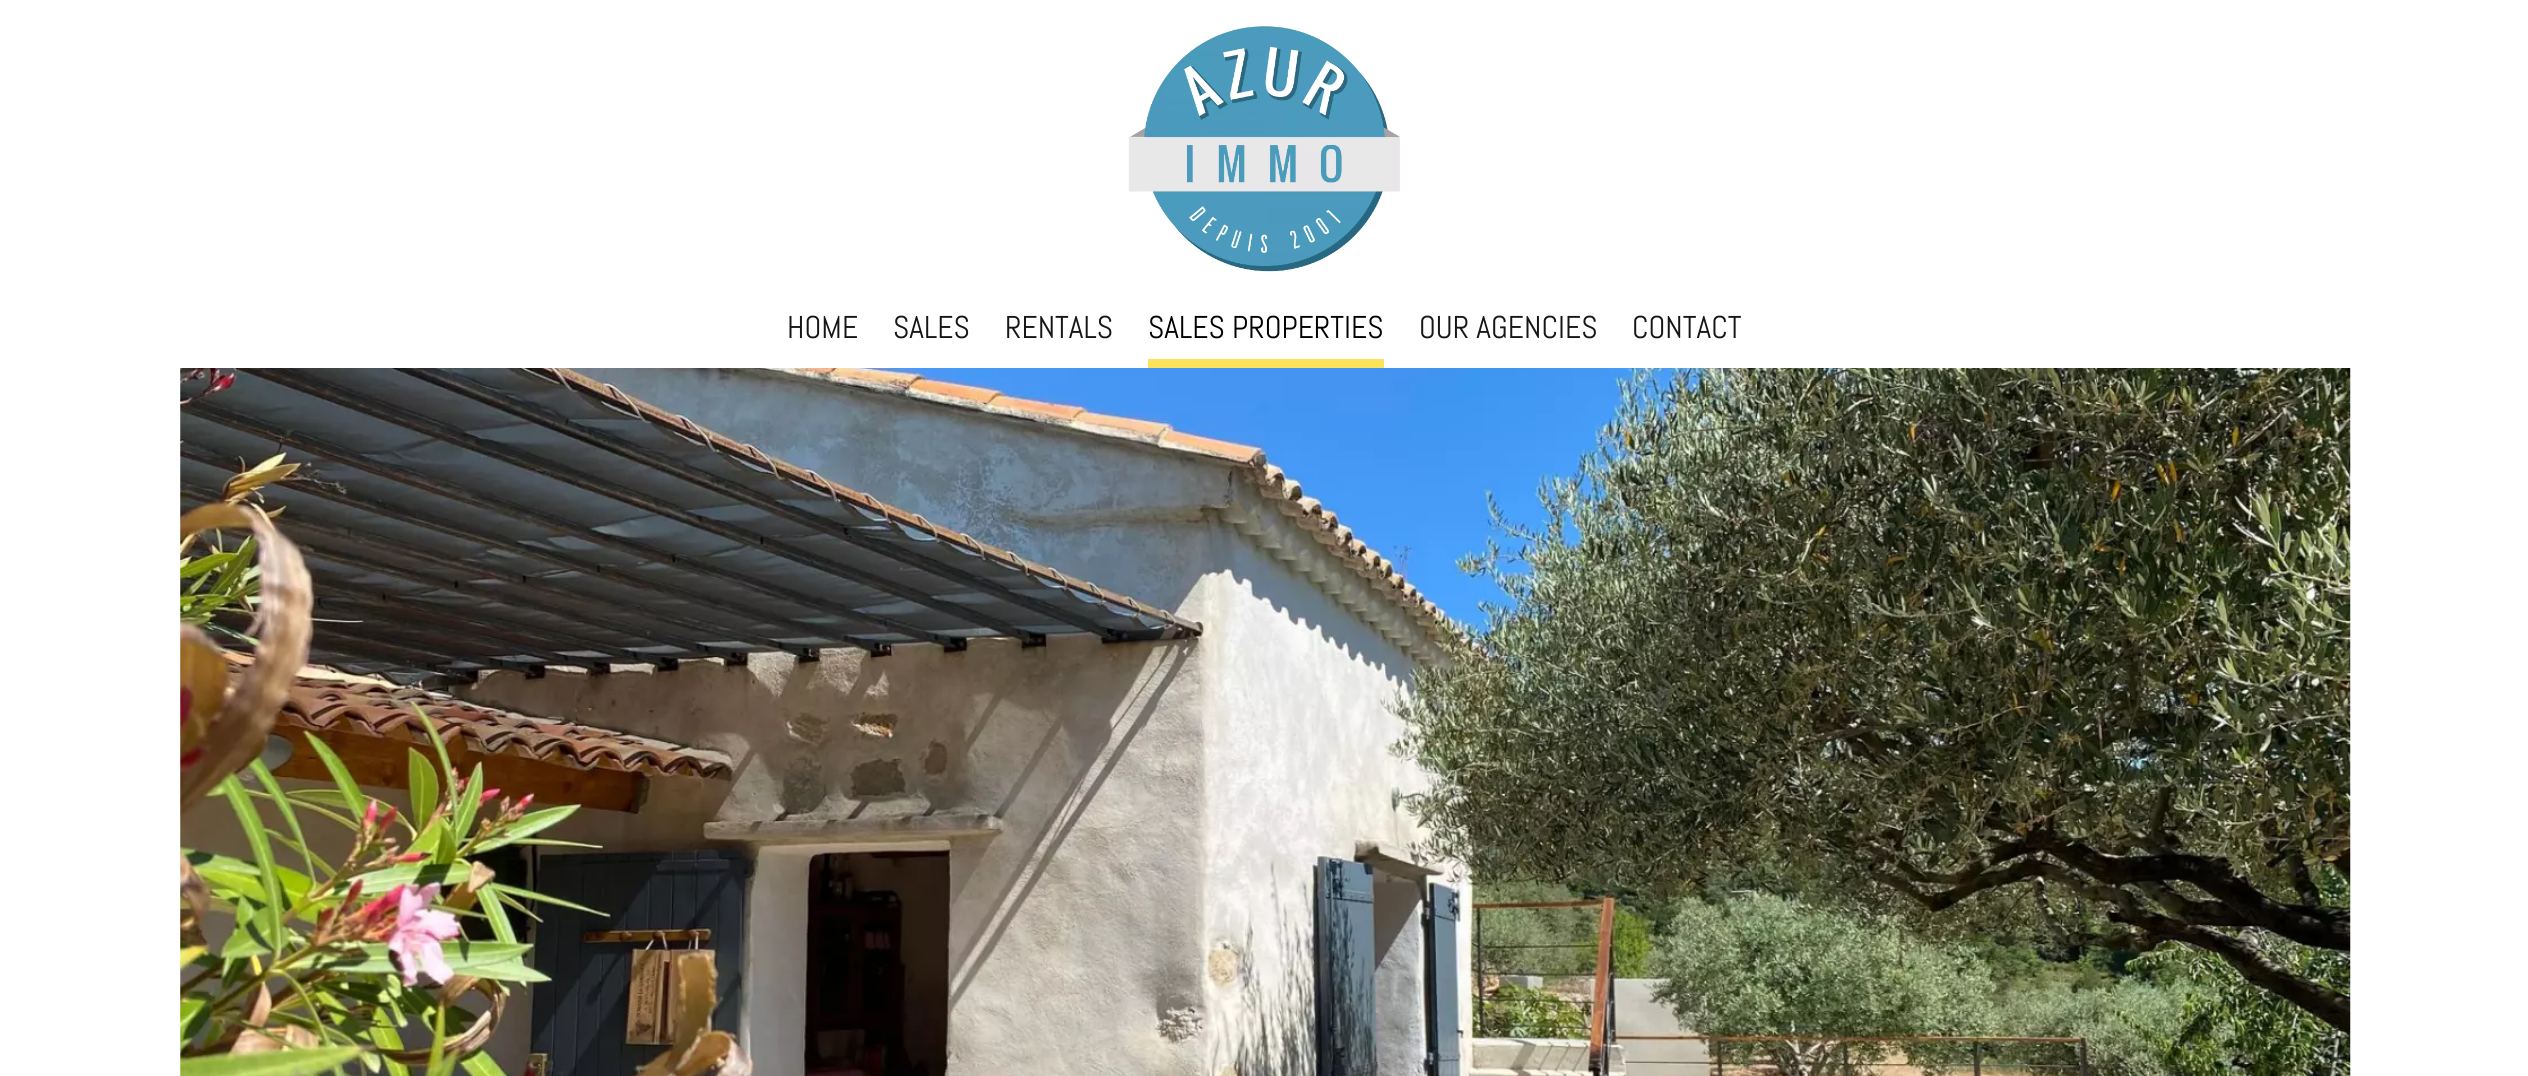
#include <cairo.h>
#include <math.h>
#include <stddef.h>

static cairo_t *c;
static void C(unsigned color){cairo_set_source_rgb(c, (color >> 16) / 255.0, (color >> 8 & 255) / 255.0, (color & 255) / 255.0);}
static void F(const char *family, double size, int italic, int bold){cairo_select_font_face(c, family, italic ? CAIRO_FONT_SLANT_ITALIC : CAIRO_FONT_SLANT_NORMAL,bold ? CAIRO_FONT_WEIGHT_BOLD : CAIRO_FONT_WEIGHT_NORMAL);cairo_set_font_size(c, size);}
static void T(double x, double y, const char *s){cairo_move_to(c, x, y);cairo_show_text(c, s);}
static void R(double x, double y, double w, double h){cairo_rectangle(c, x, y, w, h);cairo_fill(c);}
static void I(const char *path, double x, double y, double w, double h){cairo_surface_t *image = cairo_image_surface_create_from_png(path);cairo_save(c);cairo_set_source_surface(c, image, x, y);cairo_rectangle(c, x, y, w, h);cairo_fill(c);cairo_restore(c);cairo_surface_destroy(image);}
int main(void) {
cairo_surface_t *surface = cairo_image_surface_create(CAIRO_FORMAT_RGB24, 2528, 1076);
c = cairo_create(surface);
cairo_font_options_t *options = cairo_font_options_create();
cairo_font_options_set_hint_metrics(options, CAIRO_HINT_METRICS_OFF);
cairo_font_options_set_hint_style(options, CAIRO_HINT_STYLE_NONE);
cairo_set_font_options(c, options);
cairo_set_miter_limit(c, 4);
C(0xffffff);
cairo_paint(c);
I("1.png",1128,26,272,246);
F("Abel",31.5,0,0);
C(0x161616);
T(787,338,"HOME");
T(893,338,"SALES");
T(1005,338,"RENTALS");
C(0x000000);
T(1148,338,"SALES PROPERTIES");
C(0xfee25a);
R(1148,359,236,9);
C(0x161616);
T(1419,338,"OUR AGENCIES");
T(1632,338,"CONTACT");
I("2.png",180,368,2171,708);
cairo_surface_write_to_png(surface, "o.png");
cairo_font_options_destroy(options);
cairo_destroy(c);
cairo_surface_destroy(surface);
return 0;
}
